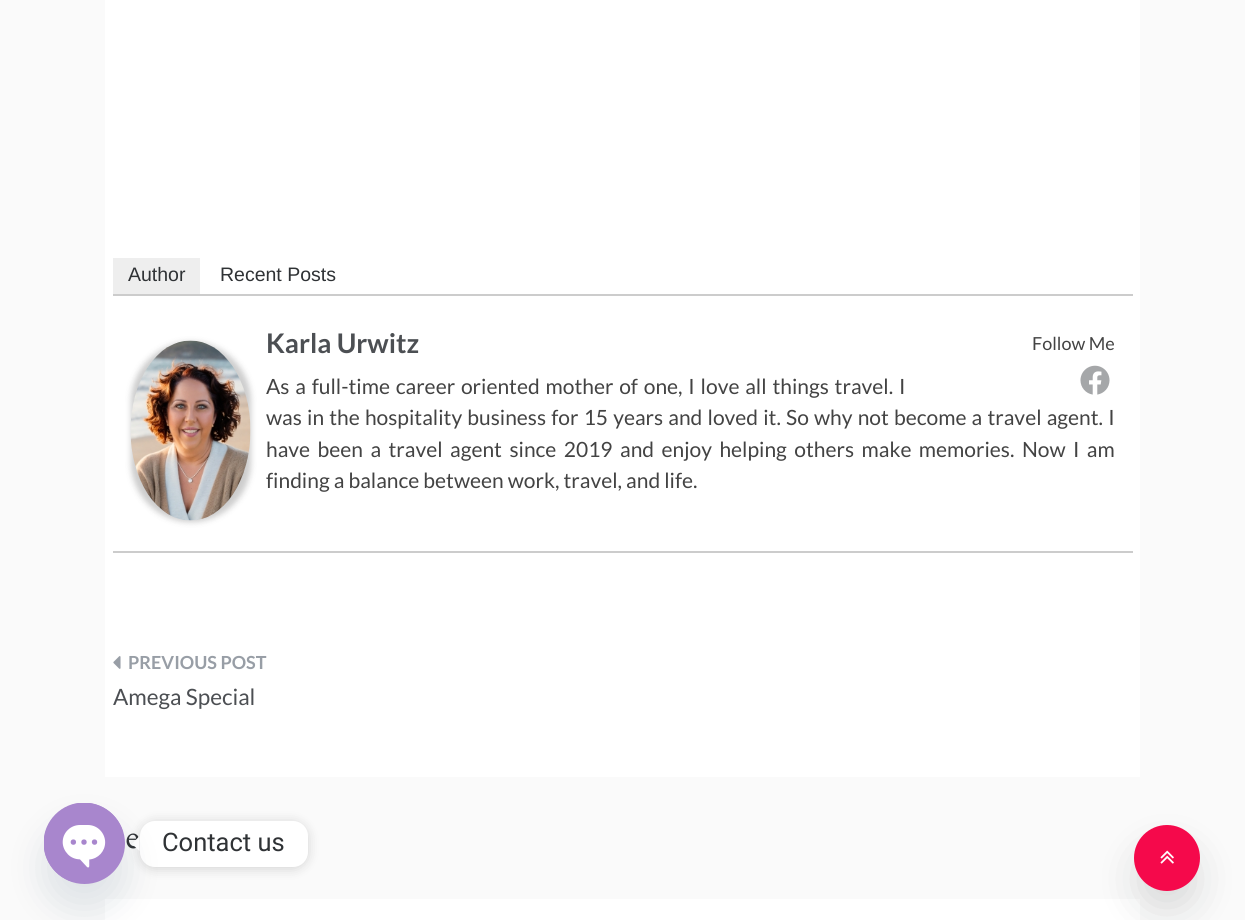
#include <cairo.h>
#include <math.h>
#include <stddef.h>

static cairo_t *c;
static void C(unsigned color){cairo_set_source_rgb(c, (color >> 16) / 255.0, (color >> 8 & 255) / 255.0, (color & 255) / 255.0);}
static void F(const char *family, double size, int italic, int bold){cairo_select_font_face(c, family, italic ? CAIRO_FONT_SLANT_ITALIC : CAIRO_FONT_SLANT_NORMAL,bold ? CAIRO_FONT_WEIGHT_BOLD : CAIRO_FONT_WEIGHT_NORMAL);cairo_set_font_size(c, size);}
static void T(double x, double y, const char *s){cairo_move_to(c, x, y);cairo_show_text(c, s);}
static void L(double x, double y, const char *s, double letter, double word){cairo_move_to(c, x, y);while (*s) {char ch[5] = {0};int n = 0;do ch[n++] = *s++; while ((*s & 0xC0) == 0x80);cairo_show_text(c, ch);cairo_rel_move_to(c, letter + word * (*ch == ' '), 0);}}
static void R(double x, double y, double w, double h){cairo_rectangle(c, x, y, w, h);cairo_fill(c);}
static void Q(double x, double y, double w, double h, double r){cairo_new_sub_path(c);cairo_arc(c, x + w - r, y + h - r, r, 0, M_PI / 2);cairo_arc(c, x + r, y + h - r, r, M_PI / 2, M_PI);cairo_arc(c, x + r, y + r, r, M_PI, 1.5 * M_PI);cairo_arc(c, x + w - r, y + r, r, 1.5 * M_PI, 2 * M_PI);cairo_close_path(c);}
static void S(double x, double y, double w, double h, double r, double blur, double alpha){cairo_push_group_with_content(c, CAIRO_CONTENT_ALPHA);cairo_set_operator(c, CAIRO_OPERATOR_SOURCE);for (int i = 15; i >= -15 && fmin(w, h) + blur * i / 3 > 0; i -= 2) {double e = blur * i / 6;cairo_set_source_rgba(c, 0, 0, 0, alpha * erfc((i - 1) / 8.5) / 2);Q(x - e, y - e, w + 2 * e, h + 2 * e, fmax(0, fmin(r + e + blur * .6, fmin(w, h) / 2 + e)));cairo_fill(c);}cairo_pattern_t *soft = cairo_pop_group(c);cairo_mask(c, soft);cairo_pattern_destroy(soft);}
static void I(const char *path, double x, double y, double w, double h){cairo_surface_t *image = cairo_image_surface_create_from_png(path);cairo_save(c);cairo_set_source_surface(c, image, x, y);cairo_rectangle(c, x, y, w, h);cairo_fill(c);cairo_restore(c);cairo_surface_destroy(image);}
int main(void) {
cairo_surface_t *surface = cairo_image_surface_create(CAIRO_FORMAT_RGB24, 1245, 920);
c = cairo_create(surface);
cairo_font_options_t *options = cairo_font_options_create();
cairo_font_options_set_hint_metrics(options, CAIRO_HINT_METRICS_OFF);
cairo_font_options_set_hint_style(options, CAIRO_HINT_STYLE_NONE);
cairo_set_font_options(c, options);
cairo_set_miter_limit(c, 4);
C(0xfafafa);
cairo_paint(c);
C(0xffffff);
R(105,0,1035,777);
C(0xcccccc);
R(113,294,1020,2);
C(0xeeeeee);
R(113,258,87,36);
F("Liberation Sans",19.5,0,0);
C(0x2f3235);
T(128,281,"Author");
T(220,281,"Recent Posts");
C(0xcccccc);
R(113,551,1020,2);
C(0x000000);
S(131,342,120,180,60,3,.2);
I("1.png",130,340,121,181);
F("Lato",27,0,1);
C(0x4c4f53);
T(266,353,"Karla Urwitz");
F("Lato",21,0,0);
C(0x434343);
L(266,394,"As a full-time career oriented mother of one, I love all things travel. I",0,1.75);
L(266,425,"was in the hospitality business for 15 years and loved it. So why not become a travel agent. I",0,1.1);
L(266,457,"have been a travel agent since 2019 and enjoy helping others make memories. Now I am",0,3.4);
T(266,488,"finding a balance between work, travel, and life.");
F("Lato",18,0,0);
T(1032,350,"Follow Me");
I("2.png",1080,365,30,30);
I("3.png",113,656,8,13);
F("Lato",18,0,1);
C(0x989ea6);
T(128,669,"PREVIOUS POST");
F("Lato",22.5,0,0);
C(0x4c4f53);
T(113,705,"Amega Special");
F("Bellefair",39,0,0);
C(0x2f3235);
T(125,848,"e");
C(0xffffff);
R(105,899,1035,21);
C(0x0e1114);
S(1140,852,54,54,27,21,.15);
C(0xf5094b);
cairo_arc(c,1167,858,33,0,2 * M_PI);
cairo_fill(c);
I("4.png",1160,850,14,14);
C(0x000000);
S(140,822,168,47,15,6,.15);
C(0xffffff);
Q(140,821,168,46,15);
cairo_fill(c);
cairo_new_path(c);
cairo_move_to(c,139.5,836);
cairo_line_to(c,139.5,851);
cairo_line_to(c,132,844);
cairo_close_path(c);
cairo_fill(c);
C(0x49687e);
S(44,827,81,81,40.5,18,.16);
C(0xa886cd);
cairo_arc(c,84.5,843.5,40.5,0,2 * M_PI);
cairo_fill(c);
I("5.png",44,803,79,79);
F("Roboto",25.5,0,0);
C(0x2f3235);
T(162,851,"Contact us");
cairo_surface_write_to_png(surface, "o.png");
cairo_font_options_destroy(options);
cairo_destroy(c);
cairo_surface_destroy(surface);
return 0;
}
